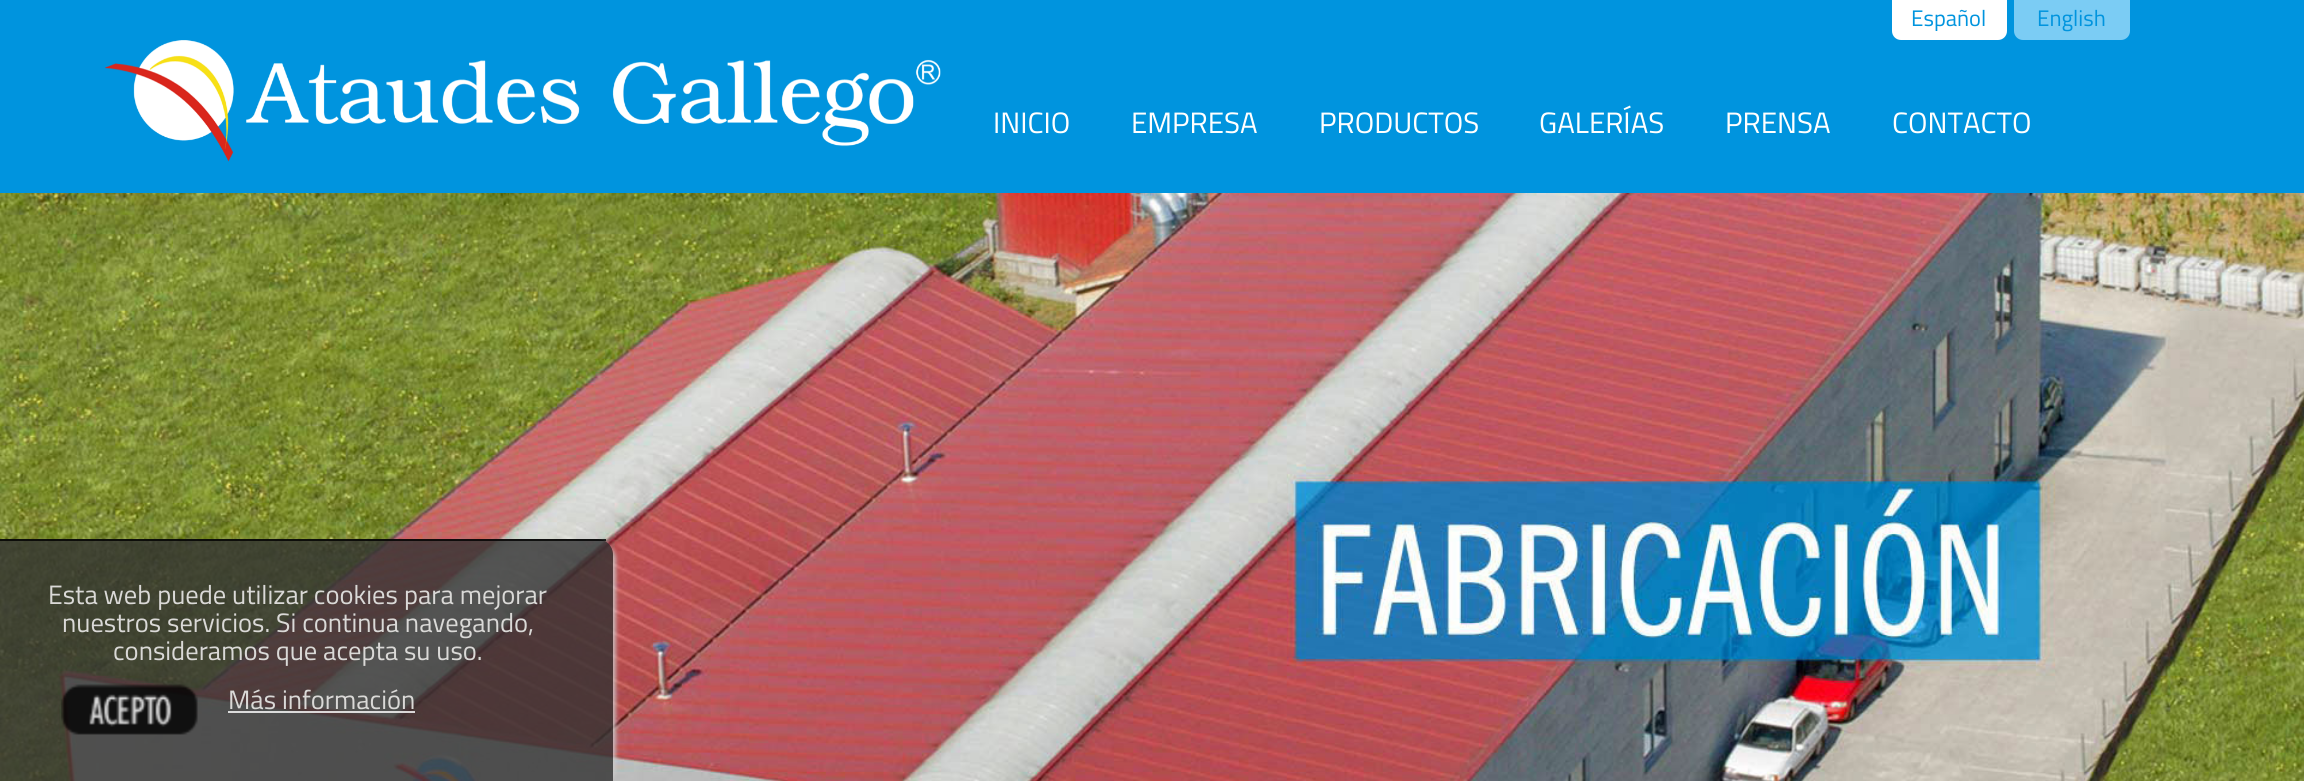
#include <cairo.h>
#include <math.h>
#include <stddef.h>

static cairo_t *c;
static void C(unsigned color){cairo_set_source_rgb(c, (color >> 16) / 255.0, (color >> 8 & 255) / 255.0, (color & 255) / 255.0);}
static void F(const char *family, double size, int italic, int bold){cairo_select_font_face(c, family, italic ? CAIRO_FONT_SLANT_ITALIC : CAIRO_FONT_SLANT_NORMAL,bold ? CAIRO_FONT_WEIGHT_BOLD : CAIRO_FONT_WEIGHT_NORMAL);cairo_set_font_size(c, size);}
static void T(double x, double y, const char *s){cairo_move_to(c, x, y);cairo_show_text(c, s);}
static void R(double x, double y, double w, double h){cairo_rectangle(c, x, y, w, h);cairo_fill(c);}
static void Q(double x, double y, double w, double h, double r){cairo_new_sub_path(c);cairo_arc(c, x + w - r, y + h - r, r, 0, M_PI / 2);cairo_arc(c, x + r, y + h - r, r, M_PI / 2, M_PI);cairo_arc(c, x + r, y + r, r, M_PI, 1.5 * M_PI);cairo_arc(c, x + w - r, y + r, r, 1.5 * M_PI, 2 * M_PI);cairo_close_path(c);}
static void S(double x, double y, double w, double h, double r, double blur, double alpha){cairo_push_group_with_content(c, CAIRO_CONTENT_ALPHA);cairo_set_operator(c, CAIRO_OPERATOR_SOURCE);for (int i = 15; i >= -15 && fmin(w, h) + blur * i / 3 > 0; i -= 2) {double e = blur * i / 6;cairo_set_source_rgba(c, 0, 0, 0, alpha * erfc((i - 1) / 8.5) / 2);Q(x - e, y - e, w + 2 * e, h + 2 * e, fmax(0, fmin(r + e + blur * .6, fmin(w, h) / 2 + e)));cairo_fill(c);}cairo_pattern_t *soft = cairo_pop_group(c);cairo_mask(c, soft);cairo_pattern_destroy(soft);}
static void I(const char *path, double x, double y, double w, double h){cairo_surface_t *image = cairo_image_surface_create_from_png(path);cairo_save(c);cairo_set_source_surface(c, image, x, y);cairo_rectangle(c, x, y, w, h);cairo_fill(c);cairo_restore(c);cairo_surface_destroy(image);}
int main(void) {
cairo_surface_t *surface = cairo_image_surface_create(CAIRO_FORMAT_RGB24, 2304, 781);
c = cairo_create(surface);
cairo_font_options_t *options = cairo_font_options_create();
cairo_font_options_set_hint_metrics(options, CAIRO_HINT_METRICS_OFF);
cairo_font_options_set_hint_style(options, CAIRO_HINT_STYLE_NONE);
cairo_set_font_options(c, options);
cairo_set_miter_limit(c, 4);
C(0xffffff);
cairo_paint(c);
C(0x0094de);
R(0,0,2304,193);
C(0xffffff);
cairo_new_path(c);
cairo_move_to(c,1892,-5);
cairo_line_to(c,2007,-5);
cairo_line_to(c,2007,31);
cairo_curve_to(c,2007,36,2003,40,1998,40);
cairo_line_to(c,1901,40);
cairo_curve_to(c,1896,40,1892,36,1892,31);
cairo_close_path(c);
cairo_fill(c);
F("Titillium Web",22.5,0,0);
C(0x0094de);
T(1911,26,"Español");
C(0x7bccf4);
cairo_new_path(c);
cairo_move_to(c,2014,-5);
cairo_line_to(c,2130,-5);
cairo_line_to(c,2130,31);
cairo_curve_to(c,2130,36,2126,40,2121,40);
cairo_line_to(c,2023,40);
cairo_curve_to(c,2018,40,2014,36,2014,31);
cairo_close_path(c);
cairo_fill(c);
C(0x0094de);
T(2037,26,"English");
I("1.png",105,40,836,122);
F("Titillium Web",29.5,0,0);
C(0xffffff);
T(993,133,"INICIO");
T(1131,133,"EMPRESA");
T(1319,133,"PRODUCTOS");
T(1539,133,"GALERÍAS");
T(1725,133,"PRENSA");
T(1892,133,"CONTACTO");
I("2.png",0,193,2304,588);
cairo_save(c);
cairo_set_fill_rule(c,CAIRO_FILL_RULE_EVEN_ODD);
cairo_new_path(c);
cairo_move_to(c,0,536);
cairo_line_to(c,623,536);
cairo_line_to(c,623,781);
cairo_line_to(c,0,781);
cairo_close_path(c);
cairo_move_to(c,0,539);
cairo_line_to(c,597,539);
cairo_curve_to(c,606,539,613,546,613,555);
cairo_line_to(c,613,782);
cairo_line_to(c,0,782);
cairo_close_path(c);
cairo_clip(c);
C(0xcccccc);
S(4,543,612,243,16,2,.8);
cairo_restore(c);
cairo_set_source_rgba(c,0.2,0.2,0.2,0.8);
cairo_new_path(c);
cairo_move_to(c,0,539);
cairo_line_to(c,597,539);
cairo_curve_to(c,606,539,613,546,613,555);
cairo_line_to(c,613,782);
cairo_line_to(c,0,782);
cairo_close_path(c);
cairo_fill(c);
cairo_set_source_rgba(c,0,0,0,0.8);
R(0,539,606,2);
F("Titillium Web",26.6,0,0);
C(0xdad9d7);
T(48,604,"Esta web puede utilizar cookies");
T(404,604,"para mejorar");
T(62,632,"nuestros servicios. Si continua navegando,");
T(113,660,"consideramos que acepta su uso.");
I("3.png",61,684,137,51);
T(228,709,"Más información");
cairo_set_source_rgba(c,1,1,1,0.8);
R(228,711,187,2);
cairo_surface_write_to_png(surface, "o.png");
cairo_font_options_destroy(options);
cairo_destroy(c);
cairo_surface_destroy(surface);
return 0;
}
